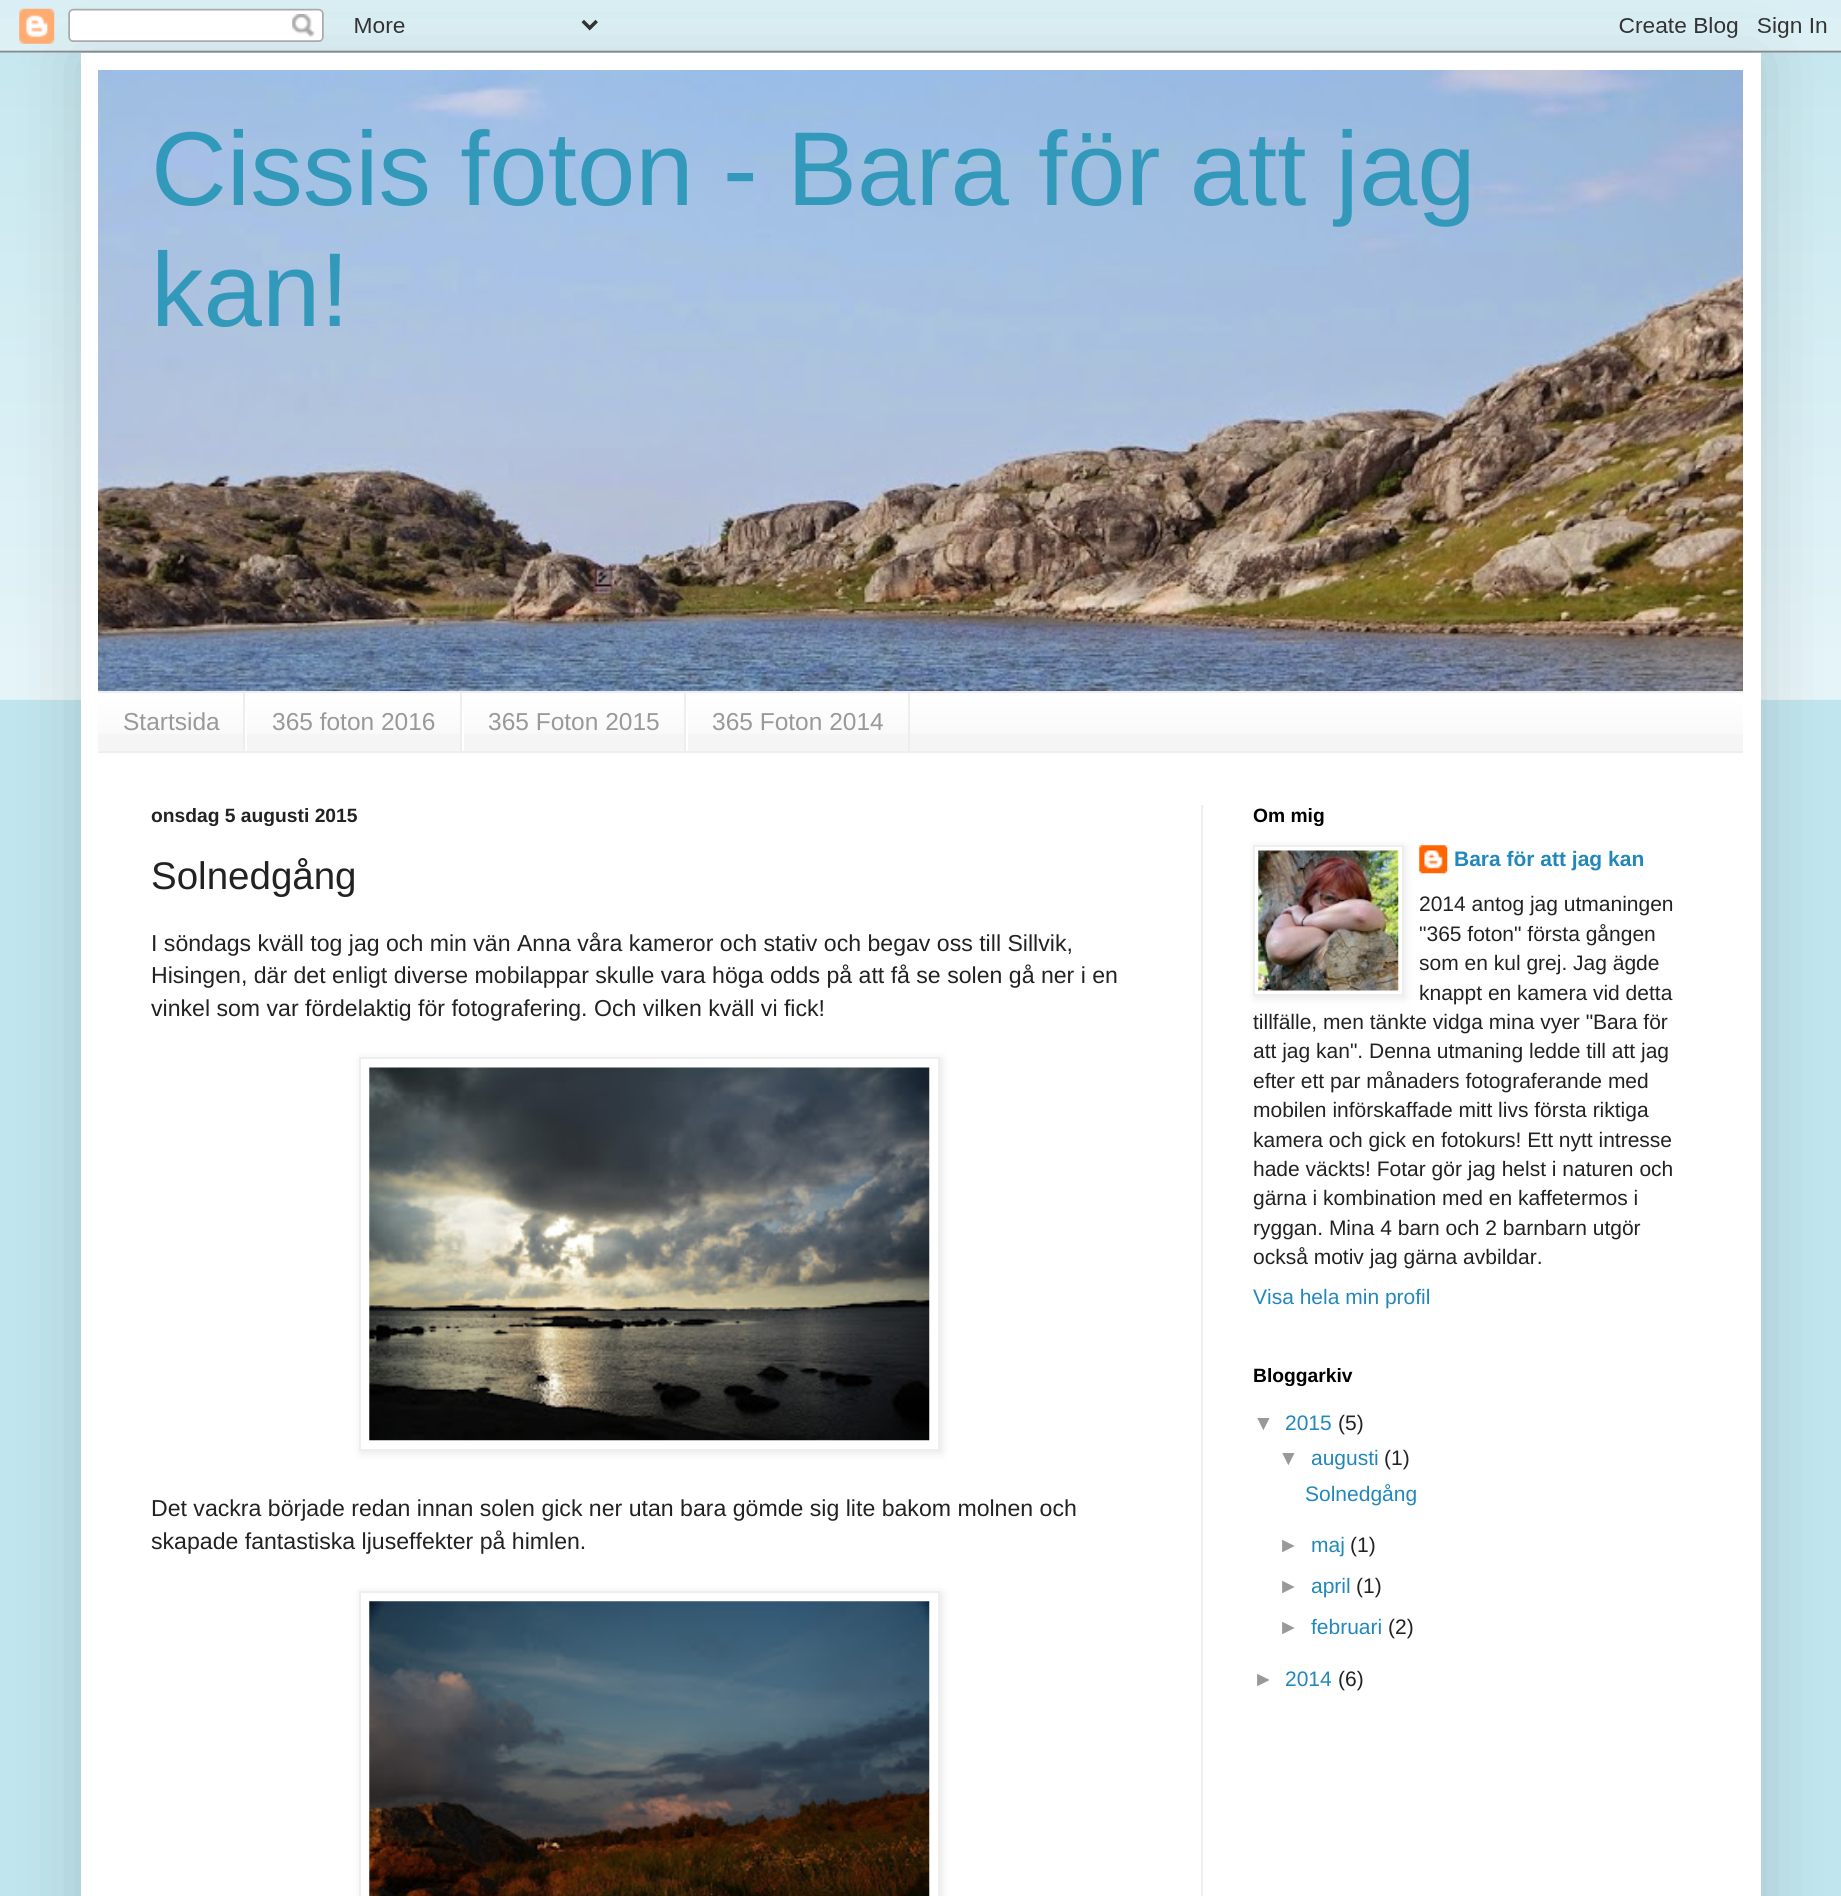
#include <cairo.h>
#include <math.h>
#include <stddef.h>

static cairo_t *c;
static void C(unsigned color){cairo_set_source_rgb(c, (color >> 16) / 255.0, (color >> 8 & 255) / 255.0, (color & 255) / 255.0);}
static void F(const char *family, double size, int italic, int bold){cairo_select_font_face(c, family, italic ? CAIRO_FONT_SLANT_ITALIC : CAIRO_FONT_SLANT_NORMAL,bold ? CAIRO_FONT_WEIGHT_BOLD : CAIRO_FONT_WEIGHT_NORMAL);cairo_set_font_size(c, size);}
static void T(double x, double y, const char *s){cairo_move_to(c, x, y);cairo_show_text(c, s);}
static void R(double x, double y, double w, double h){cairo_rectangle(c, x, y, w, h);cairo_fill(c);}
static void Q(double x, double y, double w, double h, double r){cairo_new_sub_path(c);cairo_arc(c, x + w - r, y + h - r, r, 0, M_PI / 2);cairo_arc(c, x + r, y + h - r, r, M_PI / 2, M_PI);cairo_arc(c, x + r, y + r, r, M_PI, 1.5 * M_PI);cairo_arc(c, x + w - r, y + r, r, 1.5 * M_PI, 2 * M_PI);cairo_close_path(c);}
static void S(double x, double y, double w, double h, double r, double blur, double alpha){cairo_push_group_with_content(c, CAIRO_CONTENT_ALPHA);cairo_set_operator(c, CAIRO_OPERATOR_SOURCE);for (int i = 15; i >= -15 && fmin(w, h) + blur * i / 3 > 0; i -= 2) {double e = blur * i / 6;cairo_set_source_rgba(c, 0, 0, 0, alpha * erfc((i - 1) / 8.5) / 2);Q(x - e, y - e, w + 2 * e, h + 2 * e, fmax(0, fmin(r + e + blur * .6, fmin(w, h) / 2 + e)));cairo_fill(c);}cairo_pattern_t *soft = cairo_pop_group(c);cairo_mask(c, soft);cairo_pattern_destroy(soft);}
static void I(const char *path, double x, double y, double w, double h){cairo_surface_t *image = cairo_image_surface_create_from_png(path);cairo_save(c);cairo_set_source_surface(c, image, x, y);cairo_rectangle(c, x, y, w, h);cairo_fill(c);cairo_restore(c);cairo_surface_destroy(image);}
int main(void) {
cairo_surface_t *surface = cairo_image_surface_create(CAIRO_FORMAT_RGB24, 1841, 1896);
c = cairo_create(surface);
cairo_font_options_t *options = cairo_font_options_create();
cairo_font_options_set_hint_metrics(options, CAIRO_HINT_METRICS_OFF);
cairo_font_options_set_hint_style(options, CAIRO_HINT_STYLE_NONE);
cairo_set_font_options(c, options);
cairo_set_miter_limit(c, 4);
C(0xc1e5ee);
cairo_paint(c);
I("2.png",0,18,1841,682);
C(0x000000);
S(81,53,1680,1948,0,35,.15);
I("1.png",0,0,1841,53);
C(0xffffff);
R(81,53,1680,1843);
I("3.png",98,70,1645,621);
F("Liberation Sans",105,0,0);
C(0x3399bb);
T(151,205,"Cissis foton - Bara för att jag");
T(151,326,"kan!");
C(0xf5f5f5);
R(98,693,1645,58);
I("4.png",98,693,1645,41);
C(0xeeeeee);
R(98,691,1645,2);
R(98,751,1645,2);
R(243,693,2,58);
F("Liberation Sans",24.5,0,0);
C(0x999999);
T(123,730,"Startsida");
C(0xeeeeee);
R(460,693,2,58);
C(0xffffff);
R(245,712,2,39);
C(0x999999);
T(272,730,"365 foton 2016");
C(0xeeeeee);
R(684,693,2,58);
C(0xffffff);
R(462,712,2,39);
C(0x999999);
T(488,730,"365 Foton 2015");
C(0xeeeeee);
R(908,693,2,58);
C(0xffffff);
R(686,712,2,39);
C(0x999999);
T(712,730,"365 Foton 2014");
C(0xeeeeee);
R(1201,805,2,1091);
F("Liberation Sans",19.25,0,1);
C(0x222222);
T(151,822,"onsdag 5 augusti 2015");
F("Liberation Sans",38.5,0,0);
T(151,889,"Solnedgång");
F("Liberation Sans",23.1,0,0);
T(151,951,"I söndags kväll tog jag och min vän Anna våra kameror och stativ och begav oss till Sillvik,");
T(151,983,"Hisingen, där det enligt diverse mobilappar skulle vara höga odds på att få se solen gå ner i en");
T(151,1016,"vinkel som var fördelaktig för fotografering. Och vilken kväll vi fick!");
C(0x000000);
S(361,1059,581,394,0,4.5,.1);
C(0xffffff);
cairo_rectangle(c,360,1058,579,392);
cairo_fill_preserve(c);
C(0xeeeeee);
cairo_stroke(c);
I("5.png",369,1067,561,374);
C(0x222222);
T(151,1516,"Det vackra började redan innan solen gick ner utan bara gömde sig lite bakom molnen och");
T(151,1549,"skapade fantastiska ljuseffekter på himlen.");
C(0x000000);
S(361,1593,581,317,0,4.5,.1);
C(0xffffff);
cairo_rectangle(c,360,1592,579,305);
cairo_fill_preserve(c);
C(0xeeeeee);
cairo_stroke(c);
I("6.png",369,1601,561,295);
F("Liberation Sans",19.25,0,1);
C(0x000000);
T(1253,822,"Om mig");
I("8.png",1419,845,29,29);
C(0x000000);
S(1255,847,150,151,0,4.5,.1);
C(0xffffff);
cairo_rectangle(c,1254,846,149,149);
cairo_fill_preserve(c);
C(0xeeeeee);
cairo_stroke(c);
I("7.png",1258,850,141,141);
F("Liberation Sans",21,0,1);
C(0x2288bb);
T(1454,866,"Bara för att jag kan");
F("Liberation Sans",21,0,0);
C(0x222222);
T(1419,911,"2014 antog jag utmaningen");
T(1419,941,"\"365 foton\" första gången");
T(1419,970,"som en kul grej. Jag ägde");
T(1419,1000,"knappt en kamera vid detta");
T(1253,1029,"tillfälle, men tänkte vidga mina vyer \"Bara för");
T(1253,1058,"att jag kan\". Denna utmaning ledde till att jag");
T(1253,1088,"efter ett par månaders fotograferande med");
T(1253,1117,"mobilen införskaffade mitt livs första riktiga");
T(1253,1147,"kamera och gick en fotokurs! Ett nytt intresse");
T(1253,1176,"hade väckts! Fotar gör jag helst i naturen och");
T(1253,1205,"gärna i kombination med en kaffetermos i");
T(1253,1235,"ryggan. Mina 4 barn och 2 barnbarn utgör");
T(1253,1264,"också motiv jag gärna avbildar.");
C(0x2288bb);
T(1253,1304,"Visa hela min profil");
F("Liberation Sans",19.25,0,1);
C(0x000000);
T(1253,1382,"Bloggarkiv");
F("Liberation Sans",21,0,0);
C(0x999999);
T(1253,1430,"▼");
C(0x2288bb);
T(1285,1430,"2015");
C(0x222222);
T(1338,1430,"(5)");
C(0x999999);
T(1278,1465,"▼");
C(0x2288bb);
T(1311,1465,"augusti");
C(0x222222);
T(1384,1465,"(1)");
C(0x2288bb);
T(1305,1501,"Solnedgång");
C(0x999999);
T(1278,1552,"►");
C(0x2288bb);
T(1311,1552,"maj");
C(0x222222);
T(1350,1552,"(1)");
C(0x999999);
T(1278,1593,"►");
C(0x2288bb);
T(1311,1593,"april");
C(0x222222);
T(1356,1593,"(1)");
C(0x999999);
T(1278,1634,"►");
C(0x2288bb);
T(1311,1634,"februari");
C(0x222222);
T(1388,1634,"(2)");
C(0x999999);
T(1253,1686,"►");
C(0x2288bb);
T(1285,1686,"2014");
C(0x222222);
T(1338,1686,"(6)");
cairo_surface_write_to_png(surface, "o.png");
cairo_font_options_destroy(options);
cairo_destroy(c);
cairo_surface_destroy(surface);
return 0;
}
